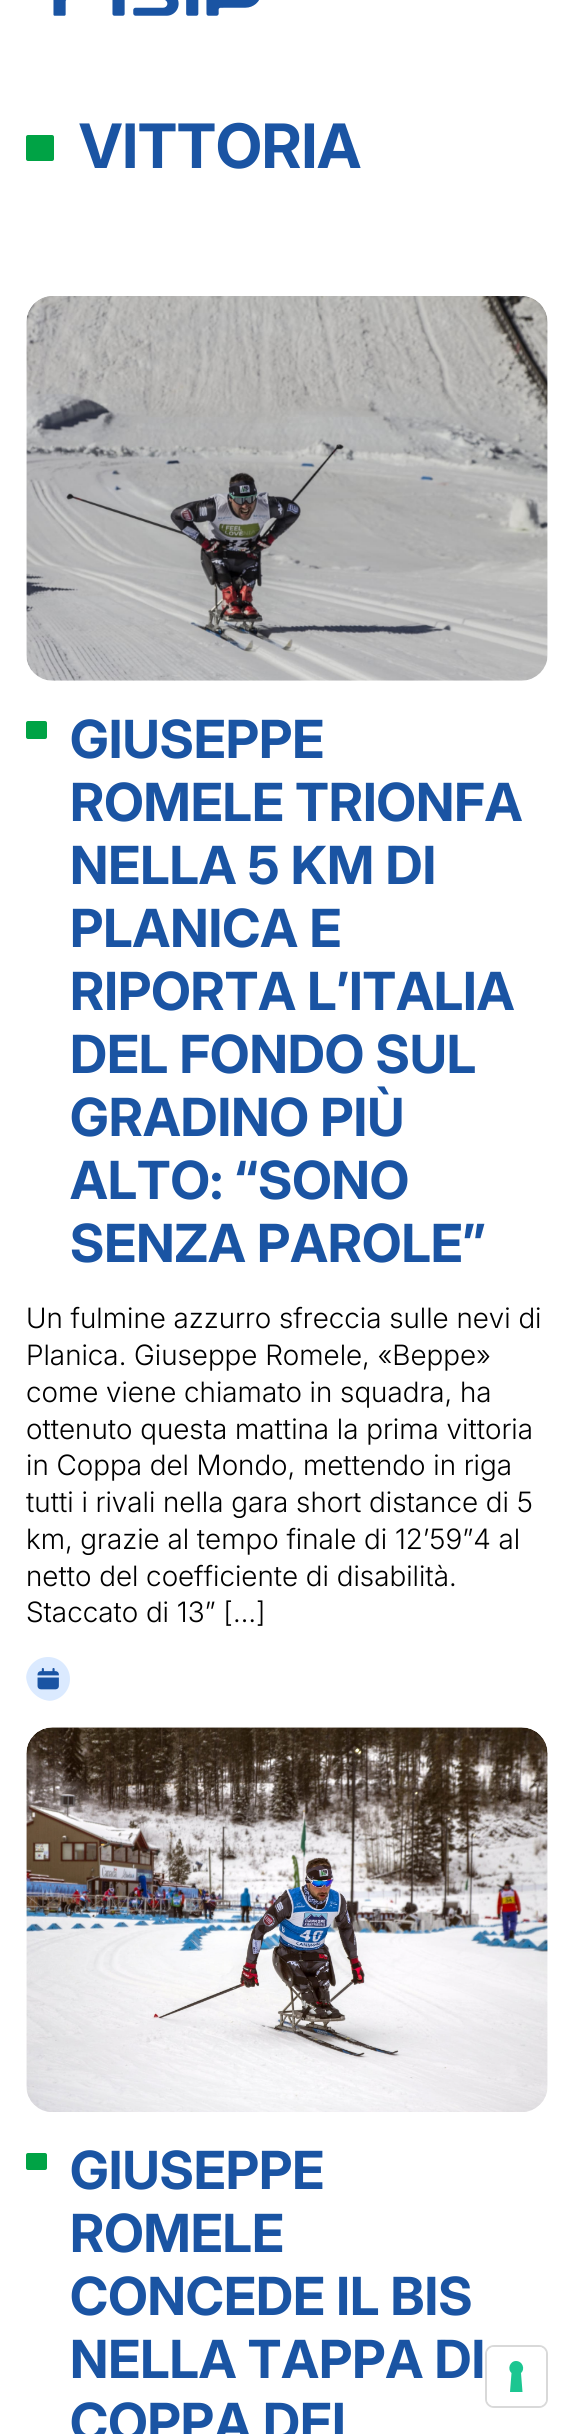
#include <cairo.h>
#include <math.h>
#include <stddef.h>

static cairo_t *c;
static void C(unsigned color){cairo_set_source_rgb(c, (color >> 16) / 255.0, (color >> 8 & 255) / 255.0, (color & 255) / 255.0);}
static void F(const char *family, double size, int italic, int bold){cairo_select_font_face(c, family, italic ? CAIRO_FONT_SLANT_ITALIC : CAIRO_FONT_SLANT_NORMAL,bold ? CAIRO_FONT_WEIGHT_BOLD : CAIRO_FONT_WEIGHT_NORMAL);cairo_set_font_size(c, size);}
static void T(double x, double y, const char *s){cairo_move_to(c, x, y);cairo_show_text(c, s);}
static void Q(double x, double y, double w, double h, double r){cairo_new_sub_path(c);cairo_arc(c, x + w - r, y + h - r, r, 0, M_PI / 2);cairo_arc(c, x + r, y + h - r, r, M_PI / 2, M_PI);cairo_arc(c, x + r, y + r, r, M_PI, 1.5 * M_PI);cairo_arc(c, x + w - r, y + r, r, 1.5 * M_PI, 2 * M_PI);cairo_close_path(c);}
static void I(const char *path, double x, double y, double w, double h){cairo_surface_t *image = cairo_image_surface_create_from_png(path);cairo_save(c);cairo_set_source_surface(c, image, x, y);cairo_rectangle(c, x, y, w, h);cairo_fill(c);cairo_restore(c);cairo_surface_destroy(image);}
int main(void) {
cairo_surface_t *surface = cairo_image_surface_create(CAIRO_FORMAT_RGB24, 574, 2434);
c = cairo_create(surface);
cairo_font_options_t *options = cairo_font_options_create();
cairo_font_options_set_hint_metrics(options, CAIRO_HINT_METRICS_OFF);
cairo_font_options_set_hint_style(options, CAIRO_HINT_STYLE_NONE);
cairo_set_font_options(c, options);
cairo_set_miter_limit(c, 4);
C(0xffffff);
cairo_paint(c);
I("1.png",53,0,206,16);
C(0x00a345);
Q(26,135,28,26,2);
cairo_fill(c);
F("Inter",61.25,0,1);
C(0x1a54a3);
T(79,168,"VITTORIA");
I("2.png",26,296,522,385);
C(0x00a345);
Q(26,721,21,18,2);
cairo_fill(c);
F("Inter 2",52.5,0,1);
C(0x1a54a3);
T(70,758,"GIUSEPPE");
T(70,821,"ROMELE TRIONFA");
T(70,884,"NELLA 5 KM DI");
T(70,947,"PLANICA E");
T(70,1010,"RIPORTA L’ITALIA");
T(70,1073,"DEL FONDO SUL");
T(70,1136,"GRADINO PIÙ");
T(70,1199,"ALTO: “SONO");
T(70,1262,"SENZA PAROLE”");
F("Inter Light",28,0,0);
C(0x000000);
T(26,1328,"Un fulmine azzurro sfreccia sulle nevi di");
T(26,1365,"Planica. Giuseppe Romele, «Beppe»");
T(26,1402,"come viene chiamato in squadra, ha");
T(26,1439,"ottenuto questa mattina la prima vittoria");
T(26,1475,"in Coppa del Mondo, mettendo in riga");
T(26,1512,"tutti i rivali nella gara short distance di 5");
T(26,1549,"km, grazie al tempo finale di 12’59”4 al");
T(26,1586,"netto del coefficiente di disabilità.");
T(26,1622,"Staccato di 13” […]");
I("3.png",26,1657,44,44);
I("4.png",26,1727,522,385);
C(0x00a345);
Q(26,2153,21,17,2);
cairo_fill(c);
F("Inter 2",52.5,0,1);
C(0x1a54a3);
T(70,2189,"GIUSEPPE");
T(70,2252,"ROMELE");
T(70,2315,"CONCEDE IL BIS");
T(70,2378,"NELLA TAPPA DI");
T(70,2441,"COPPA DEL");
Q(486,2346,61,61,8);
C(0xd9d9d9);
cairo_stroke(c);
C(0xffffff);
Q(487,2347,59,59,7);
cairo_fill(c);
C(0x1cc691);
cairo_set_fill_rule(c,CAIRO_FILL_RULE_EVEN_ODD);
cairo_new_path(c);
cairo_move_to(c,516,2361);
cairo_curve_to(c,522.5,2361,525.5,2369,521,2373);
cairo_line_to(c,522.5,2392);
cairo_line_to(c,510,2392);
cairo_line_to(c,511.5,2373);
cairo_curve_to(c,507,2369,510,2361,516,2361);
cairo_close_path(c);
cairo_fill(c);
cairo_surface_write_to_png(surface, "o.png");
cairo_font_options_destroy(options);
cairo_destroy(c);
cairo_surface_destroy(surface);
return 0;
}
